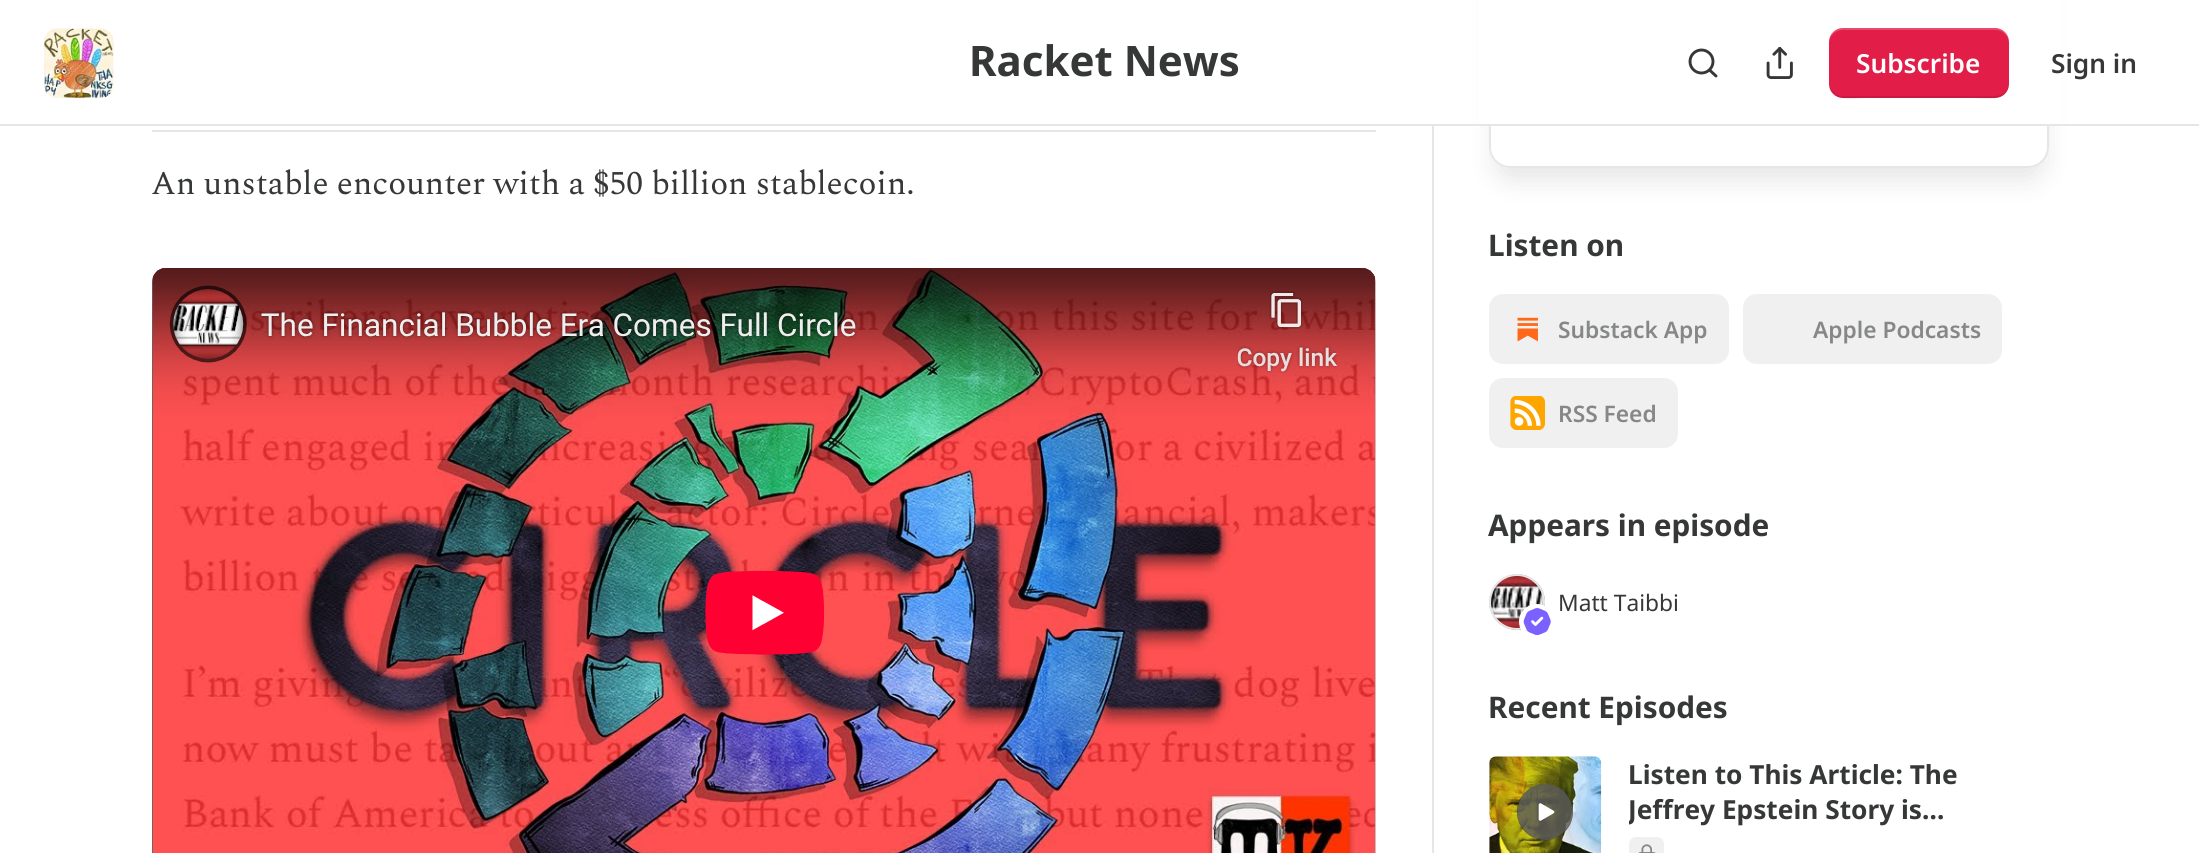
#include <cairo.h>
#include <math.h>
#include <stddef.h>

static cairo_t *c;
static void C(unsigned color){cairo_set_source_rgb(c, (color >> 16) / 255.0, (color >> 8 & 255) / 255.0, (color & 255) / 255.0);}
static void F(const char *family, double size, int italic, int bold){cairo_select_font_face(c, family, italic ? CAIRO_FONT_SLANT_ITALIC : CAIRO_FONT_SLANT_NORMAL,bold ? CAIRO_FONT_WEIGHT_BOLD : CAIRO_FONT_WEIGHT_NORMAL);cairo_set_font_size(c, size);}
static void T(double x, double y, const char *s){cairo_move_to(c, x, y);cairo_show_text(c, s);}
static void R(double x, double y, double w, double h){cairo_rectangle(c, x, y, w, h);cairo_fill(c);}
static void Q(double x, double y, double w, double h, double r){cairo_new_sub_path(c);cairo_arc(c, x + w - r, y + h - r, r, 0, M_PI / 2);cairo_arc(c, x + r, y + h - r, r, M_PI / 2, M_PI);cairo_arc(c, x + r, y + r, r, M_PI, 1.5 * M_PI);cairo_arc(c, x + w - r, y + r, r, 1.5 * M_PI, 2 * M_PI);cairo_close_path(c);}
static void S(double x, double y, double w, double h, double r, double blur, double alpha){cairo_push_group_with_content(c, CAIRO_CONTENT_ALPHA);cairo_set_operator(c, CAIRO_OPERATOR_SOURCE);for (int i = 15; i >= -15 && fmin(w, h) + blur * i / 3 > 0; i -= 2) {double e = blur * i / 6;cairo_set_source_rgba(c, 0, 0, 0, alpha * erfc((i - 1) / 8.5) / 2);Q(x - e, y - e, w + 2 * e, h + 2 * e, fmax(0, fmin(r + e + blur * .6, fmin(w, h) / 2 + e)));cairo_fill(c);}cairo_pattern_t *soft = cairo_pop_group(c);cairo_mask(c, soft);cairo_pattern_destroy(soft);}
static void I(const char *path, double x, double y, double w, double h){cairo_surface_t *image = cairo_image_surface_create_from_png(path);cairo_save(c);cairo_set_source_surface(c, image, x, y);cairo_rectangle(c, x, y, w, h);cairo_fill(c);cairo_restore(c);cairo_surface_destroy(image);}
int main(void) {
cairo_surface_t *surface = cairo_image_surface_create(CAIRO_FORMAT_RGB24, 2199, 853);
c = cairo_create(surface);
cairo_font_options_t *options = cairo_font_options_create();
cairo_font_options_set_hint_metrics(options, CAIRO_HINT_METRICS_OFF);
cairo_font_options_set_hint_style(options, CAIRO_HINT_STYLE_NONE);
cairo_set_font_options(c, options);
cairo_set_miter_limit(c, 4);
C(0xffffff);
cairo_paint(c);
cairo_save(c);
cairo_set_fill_rule(c,CAIRO_FILL_RULE_EVEN_ODD);
cairo_new_path(c);
cairo_move_to(c,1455,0);
cairo_line_to(c,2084,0);
cairo_line_to(c,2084,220);
cairo_line_to(c,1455,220);
cairo_close_path(c);
cairo_move_to(c,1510,-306);
cairo_line_to(c,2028,-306);
cairo_curve_to(c,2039.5,-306,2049,-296.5,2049,-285);
cairo_line_to(c,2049,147);
cairo_curve_to(c,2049,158.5,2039.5,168,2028,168);
cairo_line_to(c,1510,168);
cairo_curve_to(c,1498.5,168,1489,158.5,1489,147);
cairo_line_to(c,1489,-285);
cairo_curve_to(c,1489,-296.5,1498.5,-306,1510,-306);
cairo_close_path(c);
cairo_clip(c);
C(0x000000);
S(1495,-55,549,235,16,13,.1);
cairo_restore(c);
Q(1490,-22,558,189,20);
C(0xe6e6e6);
cairo_stroke(c);
C(0xffffff);
R(1478,0,583,124);
C(0xe6e6e6);
R(0,124,2199,2);
I("1.png",43,28,71,71);
F("Noto Sans",42,0,1);
C(0x363737);
T(969,76,"Racket News");
cairo_new_path(c);
cairo_arc(c,1701.5,61.5,11.5,0,2 * M_PI);
cairo_set_line_width(c,2.9);
cairo_stroke(c);
cairo_new_path(c);
cairo_move_to(c,1716,76);
cairo_line_to(c,1709.5,70);
cairo_set_line_cap(c,CAIRO_LINE_CAP_ROUND);
cairo_set_line_join(c,CAIRO_LINE_JOIN_ROUND);
cairo_stroke(c);
I("2.png",1766,47,27,32);
C(0xe11d48);
Q(1829,28,180,70,14);
cairo_fill(c);
cairo_set_source_rgba(c,0,0,0,0.1);
cairo_new_path(c);
cairo_move_to(c,1829,82);
cairo_curve_to(c,1829,104,1853,98,1868,98);
cairo_line_to(c,1970,98);
cairo_curve_to(c,1985,98,2009,104,2009,82);
cairo_curve_to(c,2009,90,2003,96,1995,96);
cairo_line_to(c,1843,96);
cairo_curve_to(c,1835,96,1829,90,1829,82);
cairo_close_path(c);
cairo_fill(c);
cairo_set_source_rgba(c,1,1,1,0.2);
cairo_new_path(c);
cairo_move_to(c,1843,30);
cairo_line_to(c,1995,30);
cairo_curve_to(c,2003,30,2009,36,2009,44);
cairo_curve_to(c,2009,22,1985,28,1970,28);
cairo_line_to(c,1868,28);
cairo_curve_to(c,1853,28,1829,22,1829,44);
cairo_curve_to(c,1829,36,1835,30,1843,30);
cairo_close_path(c);
cairo_fill(c);
F("Noto Sans SemiBold",26.25,0,0);
C(0xffffff);
T(1856,73,"Subscribe");
C(0x363737);
T(2051,73,"Sign in");
C(0xe6e6e6);
R(152,130,1224,2);
F("Spectral",33.25,0,0);
C(0x363737);
T(151,194,"An unstable encounter with a $50 billion stablecoin.");
C(0xf0f0f0);
Q(152,268,1224,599,14);
cairo_fill(c);
I("3.png",152,268,1224,585);
C(0xe6e6e6);
R(1432,126,2,727);
F("Noto Sans",29.75,0,1);
C(0x363737);
T(1488,256,"Listen on");
C(0xf0f0f0);
Q(1489,294,240,70,14);
cairo_fill(c);
I("4.png",1517,317,21,25);
F("Noto Sans SemiBold",22.75,0,0);
C(0x868787);
T(1558,338,"Substack App");
C(0xf0f0f0);
Q(1743,294,259,70,14);
cairo_fill(c);
C(0x868787);
T(1813,338,"Apple Podcasts");
C(0xf0f0f0);
Q(1489,378,189,70,14);
cairo_fill(c);
I("5.png",1510,396,35,34);
C(0x868787);
T(1558,422,"RSS Feed");
F("Noto Sans",29.75,0,1);
C(0x363737);
T(1488,536,"Appears in episode");
cairo_new_path(c);
cairo_arc(c,1517,602,27,0,2 * M_PI);
C(0xe6e6e6);
cairo_set_line_width(c,2);
cairo_set_line_cap(c,CAIRO_LINE_CAP_BUTT);
cairo_set_line_join(c,CAIRO_LINE_JOIN_MITER);
cairo_stroke(c);
I("6.png",1489,574,56,56);
cairo_arc(c,1517,602,27,0,2 * M_PI);
cairo_stroke(c);
C(0xffffff);
cairo_arc(c,1536.5,621.5,15.5,0,2 * M_PI);
cairo_fill_preserve(c);
cairo_set_line_width(c,4);
cairo_stroke(c);
I("7.png",1523,608,28,27);
F("Noto Sans",22.75,0,0);
C(0x363737);
T(1558,611,"Matt Taibbi");
F("Noto Sans",29.75,0,1);
T(1488,718,"Recent Episodes");
I("8.png",1489,756,113,97);
cairo_set_source_rgba(c,0.157,0.157,0.157,0.75);
cairo_arc(c,1545,812,28,0,2 * M_PI);
cairo_fill(c);
cairo_set_source_rgba(c,0,0,0,0.1);
cairo_new_path(c);
cairo_move_to(c,1545,784);
cairo_curve_to(c,1538,784,1531,787,1526,792);
cairo_curve_to(c,1508,809,1520,840,1545,840);
cairo_curve_to(c,1570,840,1582,809,1564,792);
cairo_curve_to(c,1559,787,1552,784,1545,784);
cairo_close_path(c);
cairo_fill(c);
cairo_set_source_rgba(c,1,1,1,0.2);
cairo_new_path(c);
cairo_move_to(c,1545,784);
cairo_curve_to(c,1520,784,1508,815,1526,832);
cairo_curve_to(c,1531,837,1538,840,1545,840);
cairo_curve_to(c,1552,840,1559,837,1564,832);
cairo_curve_to(c,1582,815,1570,784,1545,784);
cairo_close_path(c);
cairo_fill(c);
I("9.png",1538,803,17,18);
F("Noto Sans",26.25,0,1);
C(0x363737);
T(1628,784,"Listen to This Article: The");
cairo_save(c);
cairo_rectangle(c,1629,756,420,70);
cairo_clip(c);
T(1628,819,"Jeffrey Epstein Story is…");
cairo_restore(c);
C(0xf0f0f0);
Q(1629,837,35,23,7);
cairo_fill(c);
I("10.png",1638,844,18,9);
cairo_surface_write_to_png(surface, "o.png");
cairo_font_options_destroy(options);
cairo_destroy(c);
cairo_surface_destroy(surface);
return 0;
}
